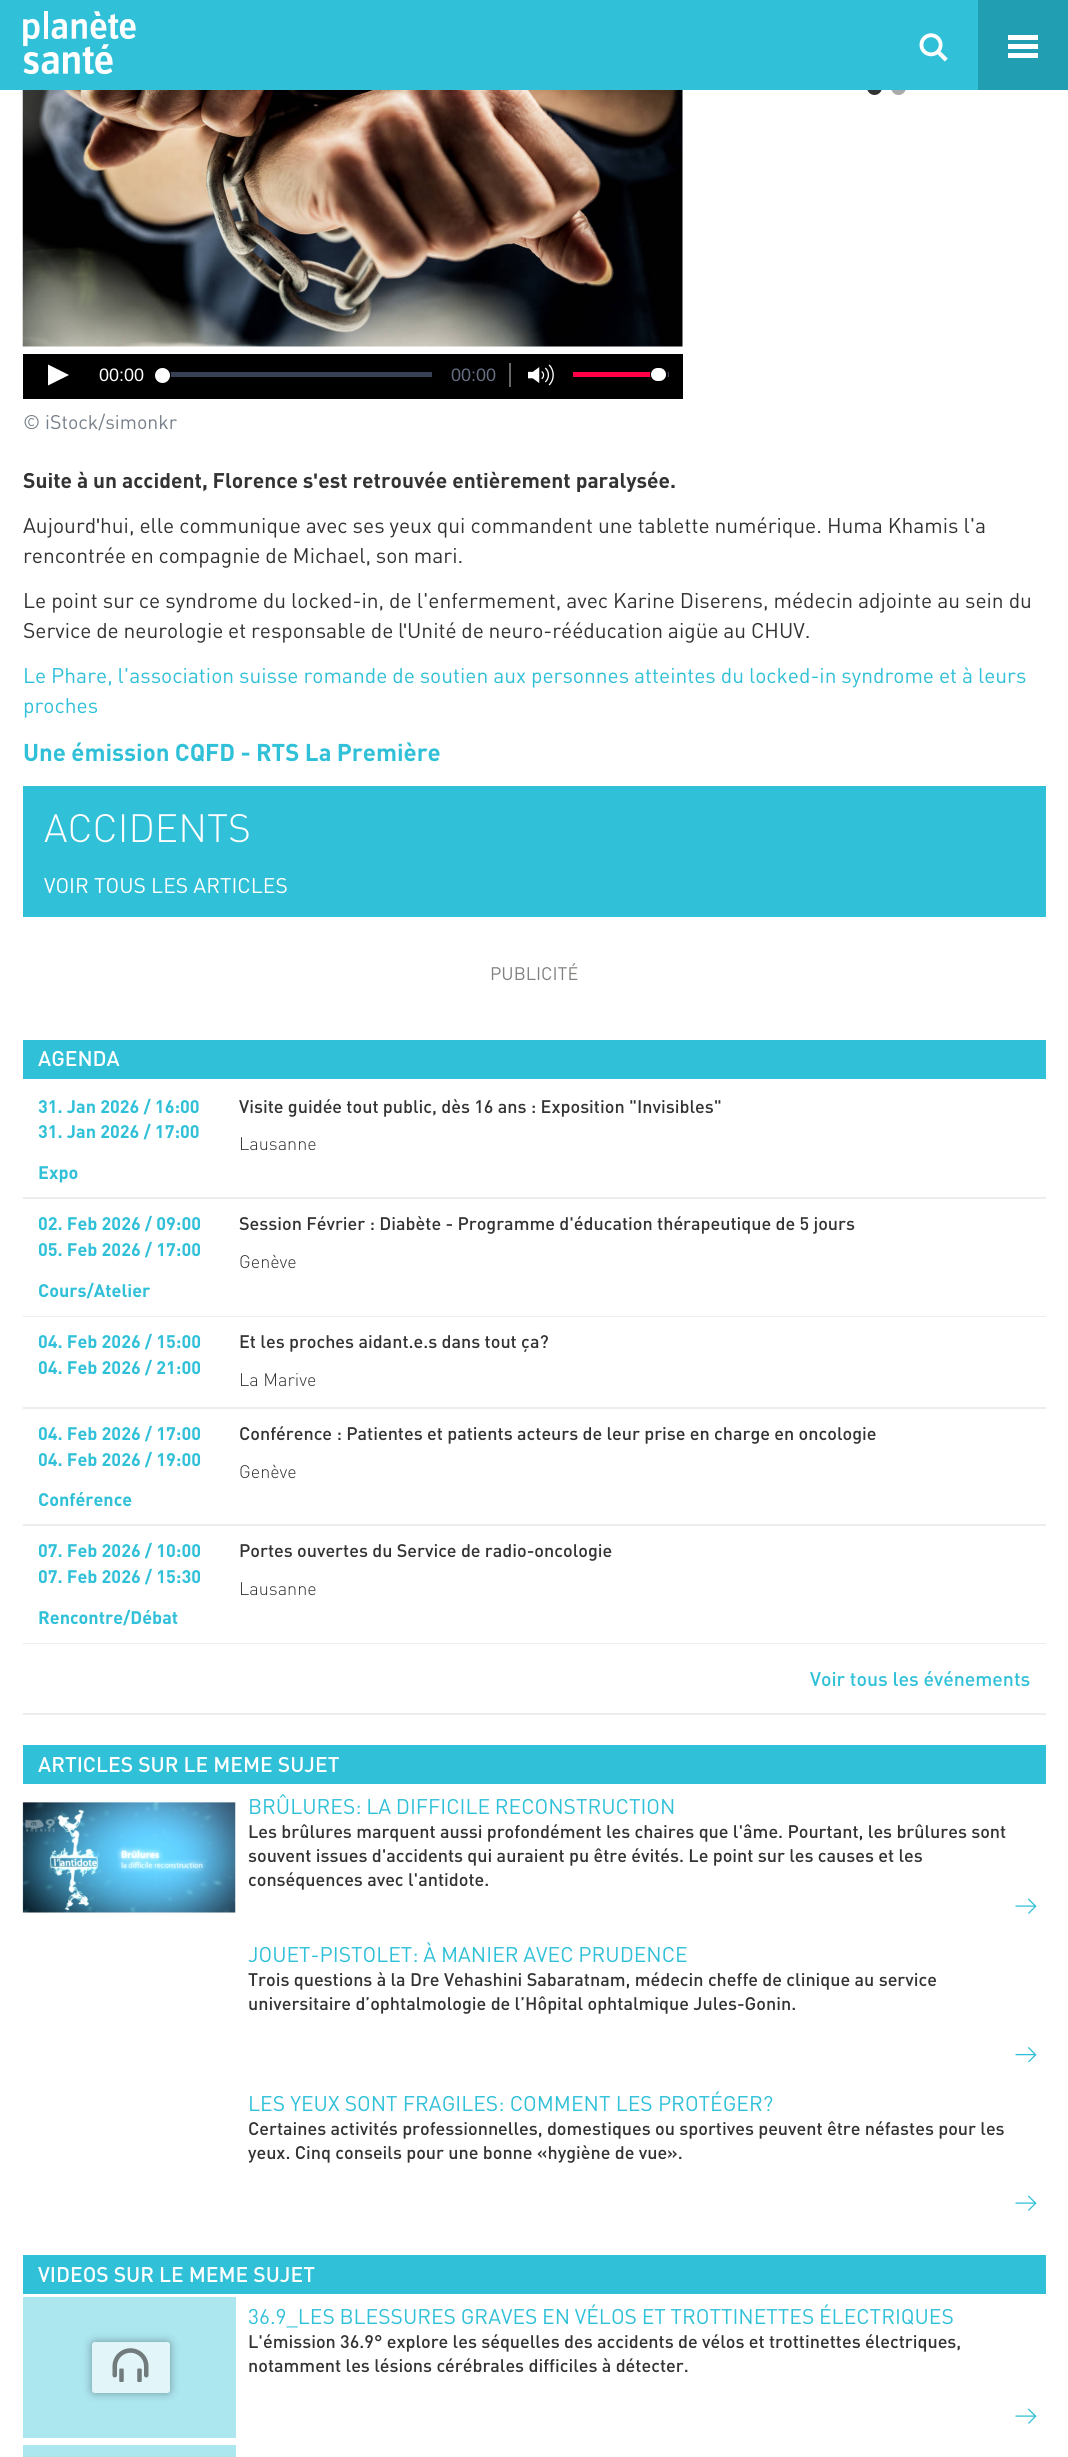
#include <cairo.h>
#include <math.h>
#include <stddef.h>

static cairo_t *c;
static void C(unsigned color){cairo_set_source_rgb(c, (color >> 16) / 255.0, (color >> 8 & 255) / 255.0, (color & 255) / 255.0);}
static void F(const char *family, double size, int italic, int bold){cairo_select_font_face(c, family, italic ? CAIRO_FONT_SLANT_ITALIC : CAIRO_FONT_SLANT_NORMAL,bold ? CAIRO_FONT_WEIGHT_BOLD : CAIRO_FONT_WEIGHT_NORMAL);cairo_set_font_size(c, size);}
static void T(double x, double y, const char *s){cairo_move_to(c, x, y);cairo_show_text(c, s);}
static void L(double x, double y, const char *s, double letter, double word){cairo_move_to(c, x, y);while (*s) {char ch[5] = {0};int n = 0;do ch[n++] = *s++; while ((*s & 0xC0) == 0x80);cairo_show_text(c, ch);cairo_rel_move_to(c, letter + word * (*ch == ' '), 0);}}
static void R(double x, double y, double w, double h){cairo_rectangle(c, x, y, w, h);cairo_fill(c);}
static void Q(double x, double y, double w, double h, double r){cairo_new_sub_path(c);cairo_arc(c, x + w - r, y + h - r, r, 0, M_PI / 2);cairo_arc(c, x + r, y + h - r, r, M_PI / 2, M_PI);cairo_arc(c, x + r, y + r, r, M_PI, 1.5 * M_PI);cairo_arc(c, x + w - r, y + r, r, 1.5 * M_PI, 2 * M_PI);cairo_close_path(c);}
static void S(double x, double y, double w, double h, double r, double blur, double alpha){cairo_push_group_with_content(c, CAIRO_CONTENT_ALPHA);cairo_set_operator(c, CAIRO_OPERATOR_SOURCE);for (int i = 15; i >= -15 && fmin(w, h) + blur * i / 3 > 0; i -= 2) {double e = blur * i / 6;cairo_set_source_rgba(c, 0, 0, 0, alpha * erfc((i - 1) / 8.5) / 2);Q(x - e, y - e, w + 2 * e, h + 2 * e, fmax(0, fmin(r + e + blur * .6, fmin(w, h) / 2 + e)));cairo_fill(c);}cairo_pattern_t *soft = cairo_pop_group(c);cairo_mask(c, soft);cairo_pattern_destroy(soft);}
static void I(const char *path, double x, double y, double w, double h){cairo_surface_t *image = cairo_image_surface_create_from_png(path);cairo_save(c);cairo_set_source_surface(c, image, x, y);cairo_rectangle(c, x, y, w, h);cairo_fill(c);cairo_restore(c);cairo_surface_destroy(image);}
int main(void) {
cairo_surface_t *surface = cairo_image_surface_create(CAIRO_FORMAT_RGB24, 1068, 2457);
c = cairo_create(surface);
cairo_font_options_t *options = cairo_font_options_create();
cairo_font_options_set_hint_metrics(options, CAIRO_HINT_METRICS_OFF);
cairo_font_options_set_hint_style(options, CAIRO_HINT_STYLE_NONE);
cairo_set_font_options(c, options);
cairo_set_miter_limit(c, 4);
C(0xffffff);
cairo_paint(c);
C(0x333333);
cairo_arc(c,874.5,87.5,7.5,0,2 * M_PI);
cairo_fill(c);
C(0xaaaaaa);
cairo_arc(c,898.5,87.5,7.5,0,2 * M_PI);
cairo_fill(c);
C(0x30c0d8);
R(0,0,978,90);
I("1.png",23,11,113,64);
I("2.png",919,33,29,29);
C(0x229eb3);
R(978,0,90,90);
C(0xffffff);
R(1008,44,30,5);
R(1008,35,30,5);
R(1008,53,30,5);
I("3.png",22,90,661,257);
C(0x000000);
R(23,354,660,45);
C(0xffffff);
cairo_new_path(c);
cairo_move_to(c,69,375);
cairo_line_to(c,48,385.5);
cairo_line_to(c,48,364.5);
cairo_close_path(c);
cairo_fill(c);
F("Liberation Sans",18,0,0);
T(99,381,"00:00");
C(0x384154);
R(162,372,270,5);
cairo_new_path(c);
cairo_arc(c,162,375,8,0,2 * M_PI);
C(0x000000);
cairo_stroke(c);
C(0xffffff);
cairo_arc(c,162.5,375.5,7.5,0,2 * M_PI);
cairo_fill(c);
C(0x666f82);
T(451,381,"00:00");
C(0x666666);
R(509,363,2,24);
I("4.png",528,364,26,22);
C(0xff0046);
R(573,372,86,5);
C(0x384154);
R(665,372,4,5);
Q(651,367,16,15,7.5);
C(0x000000);
cairo_stroke(c);
C(0xffffff);
Q(651,368,15,13,6.5);
cairo_fill(c);
F("DIN",19.5,0,0);
C(0x76808a);
T(23,429,"© iStock/simonkr");
F("DIN",21,0,1);
C(0x333333);
T(23,488,"Suite à un accident, Florence s est retrouvée entièrement paralysée.");
F("Liberation Sans",21,0,1);
T(313,488,"ʹ");
F("DIN",21,0,0);
T(23,533,"Aujourd");
F("Liberation Sans",21,0,0);
T(96,533,"ʹ");
F("DIN",21,0,0);
L(100,533,"hui, elle communique avec ses yeux qui commandent une tablette numérique. Huma Khamis l'a",0,-.25);
L(23,563,"rencontrée en compagnie de Michael, son mari.",0,-.5);
L(23,608,"Le point sur ce syndrome du locked-in, de l'enfermement, avec Karine Diserens, médecin adjointe au sein du",0,-.25);
L(23,638,"Service de neurologie et responsable de l",0,-.5);
F("Liberation Sans",21,0,0);
T(403,638,"ʹ");
F("DIN",21,0,0);
L(407,638,"Unité de neuro-rééducation aigüe au CHUV.",0,-.5);
C(0x30c0d8);
L(23,683,"Le Phare, l'association suisse romande de soutien aux personnes atteintes du locked-in syndrome et à leurs",0,-.3);
T(23,713,"proches");
F("DIN",24,0,1);
L(23,761,"Une émission CQFD - RTS La Première",0,-.25);
R(23,786,1023,131);
F("DIN Light",39,0,0);
C(0xffffff);
T(44,842,"ACCIDENTS");
F("DIN",21,0,0);
T(44,893,"VOIR TOUS LES ARTICLES");
F("DIN",18,0,0);
C(0x81807f);
T(490,980,"PUBLICITÉ");
C(0x30c0d8);
R(23,1040,1023,39);
F("DIN Medium",21,0,0);
C(0xffffff);
T(38,1066,"AGENDA");
C(0xededed);
R(23,1197,1023,2);
F("DIN",18,0,1);
C(0x30c0d8);
T(38,1113,"31. Jan 2026 / 16:00");
T(38,1138,"31. Jan 2026 / 17:00");
T(38,1179,"Expo");
F("DIN Medium",18,0,0);
C(0x333333);
T(239,1113,"Visite guidée tout public, dès 16 ans : Exposition \"Invisibles\"");
F("DIN Light",18,0,0);
T(239,1150,"Lausanne");
C(0xededed);
R(23,1316,1023,1);
F("DIN",18,0,1);
C(0x30c0d8);
T(38,1230,"02. Feb 2026 / 09:00");
T(38,1256,"05. Feb 2026 / 17:00");
T(38,1297,"Cours/Atelier");
F("DIN Medium",18,0,0);
C(0x333333);
T(239,1230,"Session Février : Diabète - Programme d'éducation thérapeutique de 5 jours");
F("DIN Light",18,0,0);
T(239,1268,"Genève");
C(0xededed);
R(23,1407,1023,2);
F("DIN",18,0,1);
C(0x30c0d8);
T(38,1348,"04. Feb 2026 / 15:00");
T(38,1374,"04. Feb 2026 / 21:00");
F("DIN Medium",18,0,0);
C(0x333333);
T(239,1348,"Et les proches aidant.e.s dans tout ça?");
F("DIN Light",18,0,0);
T(239,1386,"La Marive");
C(0xededed);
R(23,1524,1023,2);
F("DIN",18,0,1);
C(0x30c0d8);
T(38,1440,"04. Feb 2026 / 17:00");
T(38,1466,"04. Feb 2026 / 19:00");
T(38,1506,"Conférence");
F("DIN Medium",18,0,0);
C(0x333333);
T(239,1440,"Conférence : Patientes et patients acteurs de leur prise en charge en oncologie");
F("DIN Light",18,0,0);
T(239,1478,"Genève");
C(0xededed);
R(23,1643,1023,1);
F("DIN",18,0,1);
C(0x30c0d8);
T(38,1557,"07. Feb 2026 / 10:00");
T(38,1583,"07. Feb 2026 / 15:30");
T(38,1624,"Rencontre/Débat");
F("DIN Medium",18,0,0);
C(0x333333);
T(239,1557,"Portes ouvertes du Service de radio-oncologie");
F("DIN Light",18,0,0);
T(239,1595,"Lausanne");
C(0xededed);
R(23,1713,1023,2);
F("DIN Medium",19.5,0,0);
C(0x30c0d8);
T(810,1686,"Voir tous les événements");
R(23,1745,1023,39);
F("DIN Medium",21,0,0);
C(0xffffff);
T(38,1772,"ARTICLES SUR LE MEME SUJET");
I("5.png",22,1802,214,111);
F("DIN",21,0,0);
C(0x30c0d8);
L(248,1814,"BRÛLURES: LA DIFFICILE RECONSTRUCTION",0,-.5);
F("DIN Medium",18,0,0);
C(0x333333);
T(248,1838,"Les brûlures marquent aussi profondément les chaires que l'âme. Pourtant, les brûlures sont");
T(248,1862,"souvent issues d'accidents qui auraient pu être évités. Le point sur les causes et les");
T(248,1886,"conséquences avec l'antidote.");
I("6.png",1015,1898,22,16);
F("DIN",21,0,0);
C(0x30c0d8);
L(248,1962,"JOUET-PISTOLET: À MANIER AVEC PRUDENCE",0,-.5);
F("DIN Medium",18,0,0);
C(0x333333);
T(248,1986,"Trois questions à la Dre Vehashini Sabaratnam, médecin cheffe de clinique au service");
T(248,2010,"universitaire d’ophtalmologie de l’Hôpital ophtalmique Jules-Gonin.");
I("7.png",1015,2047,22,16);
F("DIN",21,0,0);
C(0x30c0d8);
T(248,2111,"LES YEUX SONT FRAGILES: COMMENT LES PROTÉGER?");
F("DIN Medium",18,0,0);
C(0x333333);
T(248,2135,"Certaines activités professionnelles, domestiques ou sportives peuvent être néfastes pour les");
T(248,2159,"yeux. Cinq conseils pour une bonne «hygiène de vue».");
I("6.png",1015,2195,22,16);
C(0x30c0d8);
R(23,2255,1023,39);
F("DIN Medium",21,0,0);
C(0xffffff);
T(38,2282,"VIDEOS SUR LE MEME SUJET");
C(0xace6ef);
R(23,2297,213,141);
cairo_save(c);
cairo_set_fill_rule(c,CAIRO_FILL_RULE_EVEN_ODD);
cairo_new_path(c);
cairo_move_to(c,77,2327);
cairo_line_to(c,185,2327);
cairo_line_to(c,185,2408);
cairo_line_to(c,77,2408);
cairo_close_path(c);
cairo_move_to(c,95,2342);
cairo_line_to(c,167,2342);
cairo_curve_to(c,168.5,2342,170,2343.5,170,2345);
cairo_line_to(c,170,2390);
cairo_curve_to(c,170,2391.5,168.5,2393,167,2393);
cairo_line_to(c,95,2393);
cairo_curve_to(c,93.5,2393,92,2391.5,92,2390);
cairo_line_to(c,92,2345);
cairo_curve_to(c,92,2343.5,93.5,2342,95,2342);
cairo_close_path(c);
cairo_clip(c);
C(0x000000);
S(92,2342,78,51,3,4.5,.35);
cairo_restore(c);
cairo_set_source_rgba(c,1,1,1,0.65);
Q(92,2342,78,51,3);
cairo_fill(c);
I("8.png",112,2348,37,34);
F("DIN",21,0,0);
C(0x30c0d8);
L(248,2324,"36.9_LES BLESSURES GRAVES EN VÉLOS ET TROTTINETTES ÉLECTRIQUES",0,-.5);
F("DIN Medium",18,0,0);
C(0x333333);
T(248,2348,"L'émission 36.9° explore les séquelles des accidents de vélos et trottinettes électriques,");
T(248,2372,"notamment les lésions cérébrales difficiles à détecter.");
I("6.png",1015,2408,22,16);
C(0xace6ef);
R(23,2445,213,12);
cairo_surface_write_to_png(surface, "o.png");
cairo_font_options_destroy(options);
cairo_destroy(c);
cairo_surface_destroy(surface);
return 0;
}
